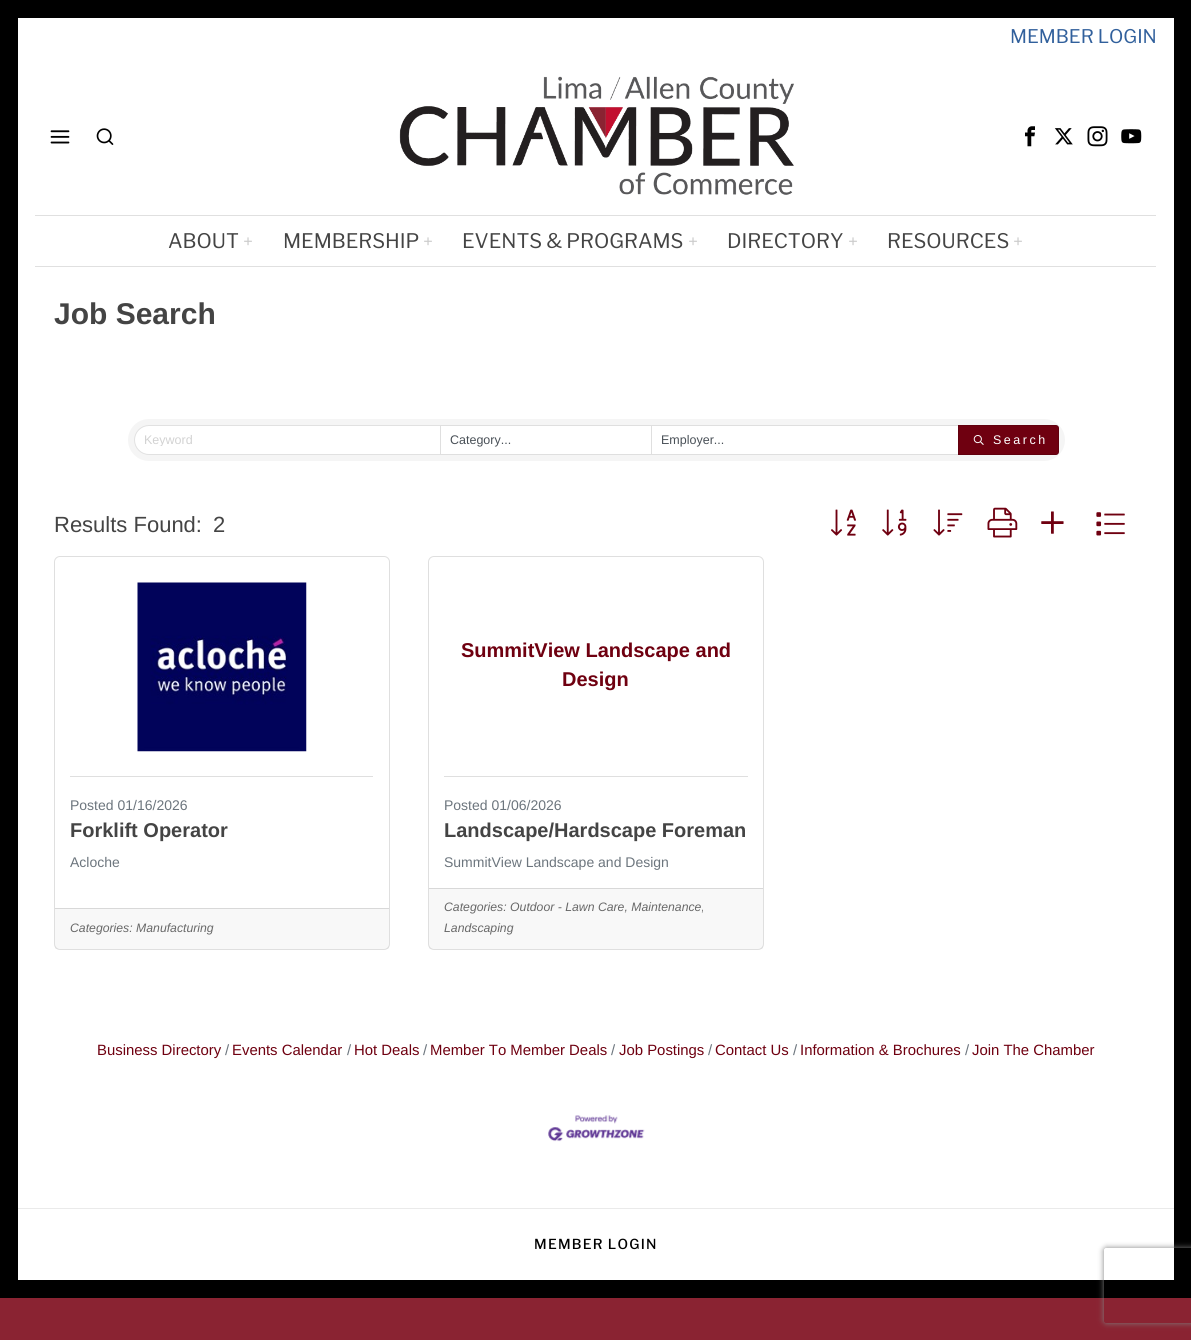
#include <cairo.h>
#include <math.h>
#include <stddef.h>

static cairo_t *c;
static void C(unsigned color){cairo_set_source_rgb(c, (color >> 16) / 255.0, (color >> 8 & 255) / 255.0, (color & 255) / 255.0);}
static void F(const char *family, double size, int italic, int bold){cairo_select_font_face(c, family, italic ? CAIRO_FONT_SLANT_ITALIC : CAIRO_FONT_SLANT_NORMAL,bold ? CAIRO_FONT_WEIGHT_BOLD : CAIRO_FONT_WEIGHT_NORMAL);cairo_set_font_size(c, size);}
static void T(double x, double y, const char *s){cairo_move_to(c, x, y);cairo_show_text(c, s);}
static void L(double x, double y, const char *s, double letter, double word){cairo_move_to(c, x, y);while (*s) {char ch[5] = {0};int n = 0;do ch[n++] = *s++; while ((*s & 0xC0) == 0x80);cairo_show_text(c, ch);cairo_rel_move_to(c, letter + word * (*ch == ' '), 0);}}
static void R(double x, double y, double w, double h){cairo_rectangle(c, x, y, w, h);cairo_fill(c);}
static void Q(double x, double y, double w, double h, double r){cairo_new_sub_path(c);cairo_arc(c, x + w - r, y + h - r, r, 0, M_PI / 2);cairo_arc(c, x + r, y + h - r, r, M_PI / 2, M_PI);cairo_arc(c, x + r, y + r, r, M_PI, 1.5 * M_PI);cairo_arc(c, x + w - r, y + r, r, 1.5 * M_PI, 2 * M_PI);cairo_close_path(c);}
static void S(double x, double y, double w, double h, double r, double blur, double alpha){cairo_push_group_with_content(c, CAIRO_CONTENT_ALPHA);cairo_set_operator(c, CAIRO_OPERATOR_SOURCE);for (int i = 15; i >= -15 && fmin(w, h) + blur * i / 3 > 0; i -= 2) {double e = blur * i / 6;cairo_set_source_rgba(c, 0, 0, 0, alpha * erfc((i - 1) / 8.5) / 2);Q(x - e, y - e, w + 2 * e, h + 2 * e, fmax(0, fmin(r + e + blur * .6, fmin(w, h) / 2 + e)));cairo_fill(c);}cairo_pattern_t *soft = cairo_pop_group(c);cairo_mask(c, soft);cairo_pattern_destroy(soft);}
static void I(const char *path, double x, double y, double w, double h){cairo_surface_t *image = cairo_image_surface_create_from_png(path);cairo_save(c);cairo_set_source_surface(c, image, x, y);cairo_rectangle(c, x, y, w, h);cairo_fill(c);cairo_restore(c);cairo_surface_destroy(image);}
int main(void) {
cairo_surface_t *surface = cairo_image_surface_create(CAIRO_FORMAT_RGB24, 1191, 1340);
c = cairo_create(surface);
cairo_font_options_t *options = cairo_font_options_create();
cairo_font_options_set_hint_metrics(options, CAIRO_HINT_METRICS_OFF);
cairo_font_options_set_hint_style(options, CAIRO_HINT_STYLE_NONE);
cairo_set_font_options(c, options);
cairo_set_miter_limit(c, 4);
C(0x8a2332);
cairo_paint(c);
cairo_rectangle(c,9,9,1173,1280);
C(0x000000);
cairo_set_line_width(c,18);
cairo_stroke(c);
C(0xffffff);
R(18,18,1156,1262);
F("Libre Franklin",18.75,0,0);
C(0x31609c);
T(1010,43,"MEMBER LOGIN");
I("1.png",50,130,20,14);
I("2.png",96,128,18,17);
I("3.png",399,76,395,119);
I("4.png",1025,126,10,21);
I("5.png",1054,128,19,17);
I("6.png",1087,126,21,21);
I("7.png",1121,129,21,15);
C(0xe0e0e0);
R(35,215,1121,1);
R(35,266,1121,1);
F("Libre Franklin",20,0,0);
C(0x444444);
T(168,248,"ABOUT");
F("Libre Franklin",18,0,0);
C(0xcccccc);
T(243,248,"+");
F("Libre Franklin",20,0,0);
C(0x444444);
T(283,248,"MEMBERSHIP");
F("Libre Franklin",18,0,0);
C(0xcccccc);
T(423,248,"+");
F("Libre Franklin",20,0,0);
C(0x444444);
T(462,248,"EVENTS & PROGRAMS");
F("Libre Franklin",18,0,0);
C(0xcccccc);
T(688,248,"+");
F("Libre Franklin",20,0,0);
C(0x444444);
T(727,248,"DIRECTORY");
F("Libre Franklin",18,0,0);
C(0xcccccc);
T(848,248,"+");
F("Libre Franklin",20,0,0);
C(0x444444);
T(887,248,"RESOURCES");
F("Libre Franklin",18,0,0);
C(0xcccccc);
T(1013,248,"+");
F("Liberation Sans",30,0,1);
C(0x444444);
T(54,324,"Job Search");
C(0xf5f5f5);
Q(128,419,937,42,21);
cairo_fill(c);
C(0xffffff);
cairo_new_path(c);
cairo_move_to(c,149,425);
cairo_line_to(c,441,425);
cairo_line_to(c,441,455);
cairo_line_to(c,149,455);
cairo_curve_to(c,140.5,455,134,448.5,134,440);
cairo_curve_to(c,134,431.5,140.5,425,149,425);
cairo_close_path(c);
cairo_fill(c);
cairo_new_path(c);
cairo_move_to(c,149,425.5);
cairo_line_to(c,440.5,425.5);
cairo_line_to(c,440.5,454.5);
cairo_line_to(c,149,454.5);
cairo_curve_to(c,141,454.5,134.5,448,134.5,440);
cairo_curve_to(c,134.5,432,141,425.5,149,425.5);
cairo_close_path(c);
cairo_set_source_rgba(c,0,0,0,0.12);
cairo_set_line_width(c,1);
cairo_stroke(c);
cairo_save(c);
cairo_rectangle(c,144,433,286,13);
cairo_clip(c);
F("Liberation Sans",12.5,0,0);
C(0xd2d2d2);
T(144,444,"Keyword");
cairo_restore(c);
C(0xffffff);
R(441,426,210,28);
cairo_rectangle(c,440.5,425.5,212,29);
C(0xdfdfdf);
cairo_stroke(c);
F("Liberation Sans",12.5,0,0);
C(0x495057);
T(450,444,"Category...");
C(0xffffff);
cairo_rectangle(c,651.5,425.5,307,29);
cairo_fill_preserve(c);
C(0xdfdfdf);
cairo_stroke(c);
C(0x495057);
T(661,444,"Employer...");
C(0x6f0010);
cairo_new_path(c);
cairo_move_to(c,958,425);
cairo_line_to(c,1056,425);
cairo_curve_to(c,1057.5,425,1059,426.5,1059,428);
cairo_line_to(c,1059,452);
cairo_curve_to(c,1059,453.5,1057.5,455,1056,455);
cairo_line_to(c,958,455);
cairo_close_path(c);
cairo_fill(c);
cairo_new_path(c);
cairo_move_to(c,958.5,425.5);
cairo_line_to(c,1056,425.5);
cairo_curve_to(c,1057.5,425.5,1058.5,426.5,1058.5,428);
cairo_line_to(c,1058.5,452);
cairo_curve_to(c,1058.5,453.5,1057.5,454.5,1056,454.5);
cairo_line_to(c,958.5,454.5);
cairo_close_path(c);
cairo_set_source_rgba(c,0,0,0,0.12);
cairo_stroke(c);
I("8.png",973,435,11,10);
C(0xffffff);
L(993,444,"Search",2.5,0);
F("Liberation Sans",22,0,0);
C(0x444444);
T(54,532,"Results Found:");
T(213,532,"2");
I("9.png",831,509,25,27);
I("10.png",882,509,25,27);
I("11.png",933,509,30,27);
I("12.png",987,507,31,31);
I("13.png",1041,511,23,23);
I("14.png",1096,512,29,24);
Q(54.5,556.5,335,393,5.5);
C(0xdfdfdf);
cairo_stroke(c);
I("15.png",137,582,170,170);
R(70,776,303,1);
F("Liberation Sans",14,0,0);
C(0x6c757d);
T(70,810,"Posted 01/16/2026");
F("Liberation Sans",20,0,1);
C(0x444444);
T(70,837,"Forklift Operator");
F("Liberation Sans",14,0,0);
C(0x6c757d);
T(70,867,"Acloche");
cairo_set_source_rgba(c,0,0,0,0.03);
R(55,909,334,40);
C(0xd8d8d8);
R(55,908,334,1);
F("Liberation Sans",12.25,1,0);
C(0x686868);
T(70,932,"Categories: Manufacturing");
Q(428.5,556.5,335,393,5.5);
C(0xdfdfdf);
cairo_stroke(c);
F("Liberation Sans",20,0,1);
C(0x6f0010);
T(461,657,"SummitView Landscape and");
T(562,686,"Design");
C(0xdfdfdf);
R(444,776,304,1);
F("Liberation Sans",14,0,0);
C(0x6c757d);
T(444,810,"Posted 01/06/2026");
F("Liberation Sans",20,0,1);
C(0x444444);
T(444,837,"Landscape/Hardscape Foreman");
F("Liberation Sans",14,0,0);
C(0x6c757d);
T(444,867,"SummitView Landscape and Design");
cairo_set_source_rgba(c,0,0,0,0.03);
R(429,889,334,60);
C(0xd8d8d8);
R(429,888,334,1);
F("Liberation Sans",12.25,1,0);
C(0x686868);
T(444,911,"Categories: Outdoor - Lawn Care, Maintenance,");
T(444,932,"Landscaping");
F("Liberation Sans",14.9,0,0);
C(0x6f0010);
T(97,1055,"Business Directory");
C(0x6c757d);
T(225,1055,"/");
C(0x6f0010);
T(232,1055,"Events Calendar");
C(0x6c757d);
T(347,1055,"/");
C(0x6f0010);
T(354,1055,"Hot Deals");
C(0x6c757d);
T(423,1055,"/");
C(0x6f0010);
T(430,1055,"Member To Member Deals");
C(0x6c757d);
T(611,1055,"/");
C(0x6f0010);
T(619,1055,"Job Postings");
C(0x6c757d);
T(708,1055,"/");
C(0x6f0010);
T(715,1055,"Contact Us");
C(0x6c757d);
T(793,1055,"/");
C(0x6f0010);
T(800,1055,"Information & Brochures");
C(0x6c757d);
T(965,1055,"/");
C(0x6f0010);
T(972,1055,"Join The Chamber");
I("16.png",548,1115,97,27);
C(0xeaeaea);
R(18,1208,1156,1);
F("Libre Franklin Medium",13.75,0,0);
C(0x000000);
L(534,1249,"MEMBER LOGIN",1.25,0);
cairo_save(c);
cairo_set_fill_rule(c,CAIRO_FILL_RULE_EVEN_ODD);
cairo_new_path(c);
cairo_move_to(c,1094,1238);
cairo_line_to(c,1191,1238);
cairo_line_to(c,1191,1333);
cairo_line_to(c,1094,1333);
cairo_close_path(c);
cairo_move_to(c,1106.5,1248);
cairo_line_to(c,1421.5,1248);
cairo_curve_to(c,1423,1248,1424,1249,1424,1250.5);
cairo_line_to(c,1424,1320.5);
cairo_curve_to(c,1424,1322,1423,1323,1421.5,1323);
cairo_line_to(c,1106.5,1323);
cairo_curve_to(c,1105,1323,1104,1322,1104,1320.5);
cairo_line_to(c,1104,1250.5);
cairo_curve_to(c,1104,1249,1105,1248,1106.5,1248);
cairo_close_path(c);
cairo_clip(c);
C(0x808080);
S(1104,1248,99,75,2.5,3,1);
cairo_restore(c);
cairo_surface_write_to_png(surface, "o.png");
cairo_font_options_destroy(options);
cairo_destroy(c);
cairo_surface_destroy(surface);
return 0;
}
